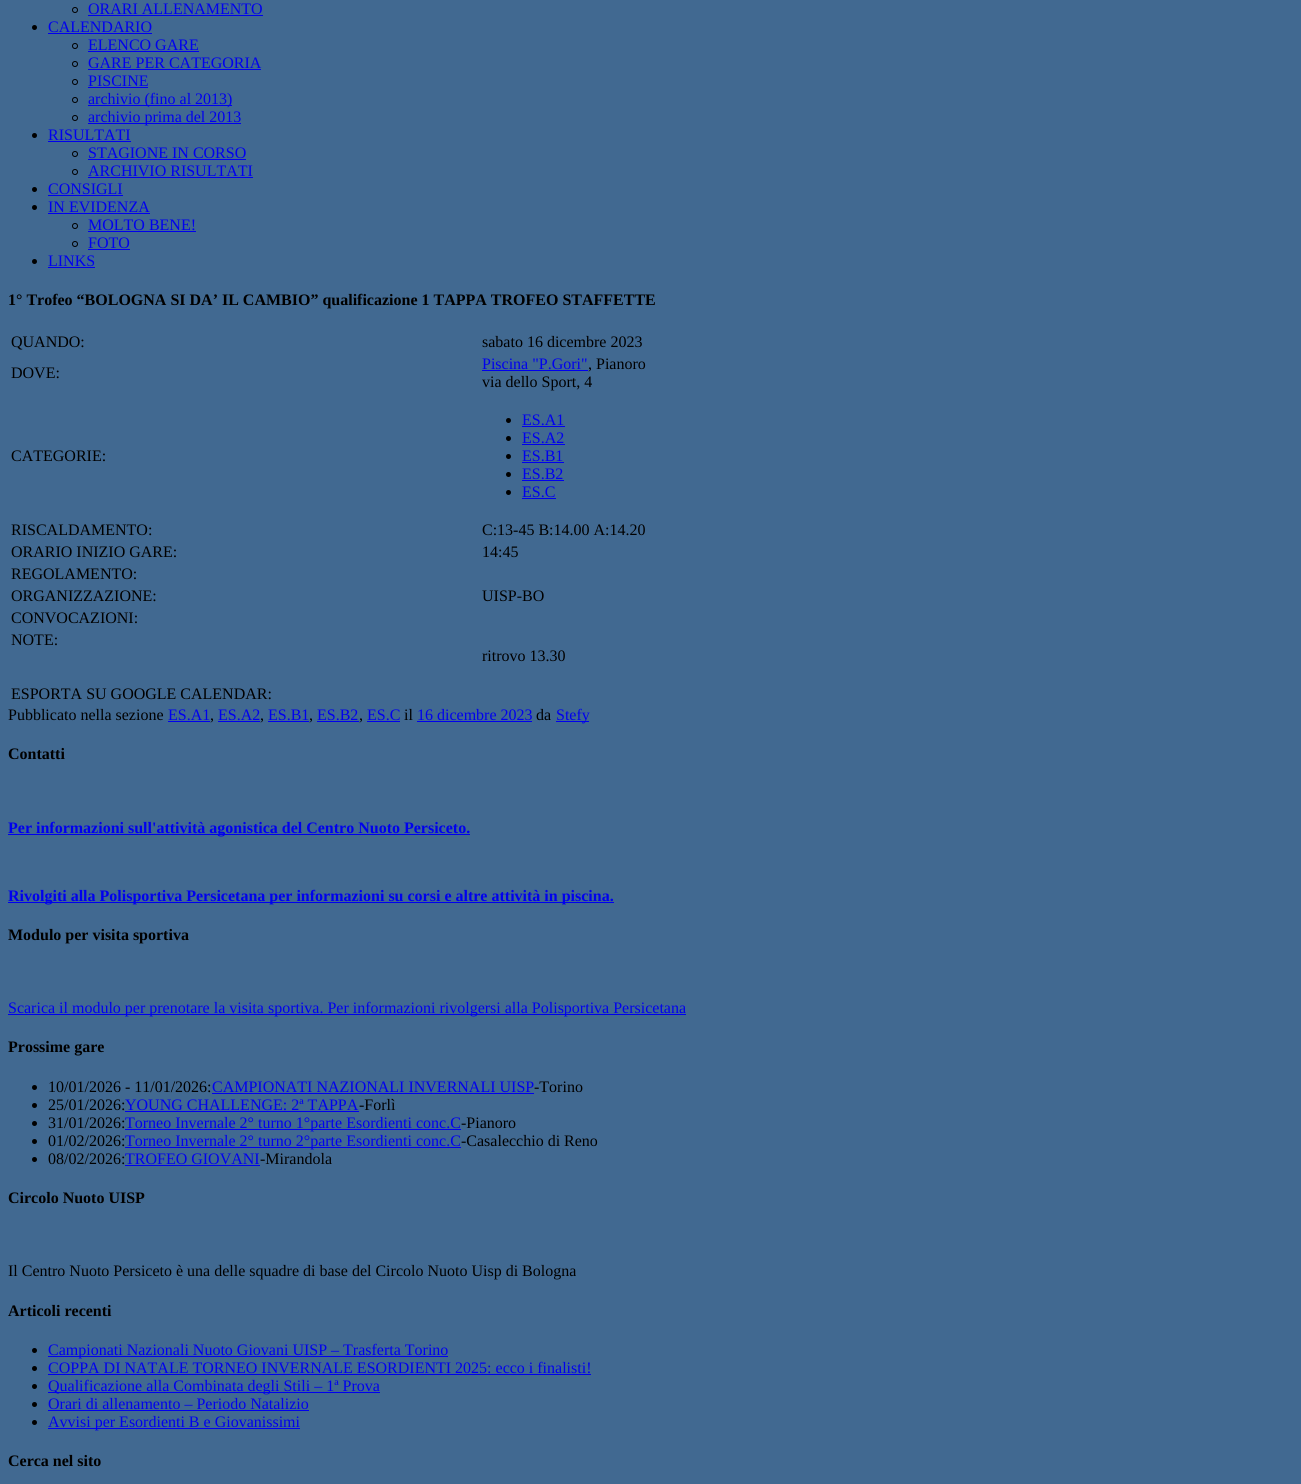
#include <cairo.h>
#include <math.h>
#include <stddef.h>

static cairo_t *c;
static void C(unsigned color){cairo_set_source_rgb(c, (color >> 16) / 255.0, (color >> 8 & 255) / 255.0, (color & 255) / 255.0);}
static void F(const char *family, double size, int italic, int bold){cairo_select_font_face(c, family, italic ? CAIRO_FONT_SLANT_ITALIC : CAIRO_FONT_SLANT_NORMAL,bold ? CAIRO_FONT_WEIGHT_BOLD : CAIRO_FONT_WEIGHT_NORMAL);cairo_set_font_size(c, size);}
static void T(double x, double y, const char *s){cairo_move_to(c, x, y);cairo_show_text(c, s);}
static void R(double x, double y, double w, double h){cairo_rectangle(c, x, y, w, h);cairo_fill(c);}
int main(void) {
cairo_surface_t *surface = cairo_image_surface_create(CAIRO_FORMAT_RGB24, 1301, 1484);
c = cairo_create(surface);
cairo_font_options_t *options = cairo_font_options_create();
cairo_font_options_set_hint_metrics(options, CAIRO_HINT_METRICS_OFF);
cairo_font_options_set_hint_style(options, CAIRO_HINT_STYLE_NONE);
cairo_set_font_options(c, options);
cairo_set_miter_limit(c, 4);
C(0x416991);
cairo_paint(c);
cairo_arc(c,75,10,2.5,0,2 * M_PI);
C(0x000000);
cairo_set_line_width(c,1);
cairo_stroke(c);
F("Liberation Serif",16,0,0);
C(0x0000ee);
T(88,14,"ORARI ALLENAMENTO");
R(88,15,175,1);
C(0x000000);
cairo_new_path(c);
cairo_arc(c,34.5,27.5,2.5,0,2 * M_PI);
cairo_fill(c);
C(0x0000ee);
T(48,32,"CALENDARIO");
R(48,33,104,1);
cairo_new_path(c);
cairo_arc(c,75,46,2.5,0,2 * M_PI);
C(0x000000);
cairo_stroke(c);
C(0x0000ee);
T(88,50,"ELENCO GARE");
R(88,51,111,1);
cairo_new_path(c);
cairo_arc(c,75,64,2.5,0,2 * M_PI);
C(0x000000);
cairo_stroke(c);
C(0x0000ee);
T(88,68,"GARE PER CATEGORIA");
R(88,69,173,1);
cairo_new_path(c);
cairo_arc(c,75,82,2.5,0,2 * M_PI);
C(0x000000);
cairo_stroke(c);
C(0x0000ee);
T(88,86,"PISCINE");
R(88,87,60,1);
cairo_new_path(c);
cairo_arc(c,75,100,2.5,0,2 * M_PI);
C(0x000000);
cairo_stroke(c);
C(0x0000ee);
R(88,105,144,1);
T(88,104,"archivio (fino al 2013)");
cairo_new_path(c);
cairo_arc(c,75,118,2.5,0,2 * M_PI);
C(0x000000);
cairo_stroke(c);
C(0x0000ee);
R(88,123,153,1);
T(88,122,"archivio prima del 2013");
C(0x000000);
cairo_new_path(c);
cairo_arc(c,34.5,135.5,2.5,0,2 * M_PI);
cairo_fill(c);
C(0x0000ee);
T(48,140,"RISULTATI");
R(48,141,83,1);
cairo_new_path(c);
cairo_arc(c,75,154,2.5,0,2 * M_PI);
C(0x000000);
cairo_stroke(c);
C(0x0000ee);
T(88,158,"STAGIONE IN CORSO");
R(88,159,158,1);
cairo_new_path(c);
cairo_arc(c,75,172,2.5,0,2 * M_PI);
C(0x000000);
cairo_stroke(c);
C(0x0000ee);
T(88,176,"ARCHIVIO RISULTATI");
R(88,177,165,1);
C(0x000000);
cairo_new_path(c);
cairo_arc(c,34.5,189.5,2.5,0,2 * M_PI);
cairo_fill(c);
C(0x0000ee);
T(48,194,"CONSIGLI");
R(48,195,75,1);
C(0x000000);
cairo_new_path(c);
cairo_arc(c,34.5,207.5,2.5,0,2 * M_PI);
cairo_fill(c);
C(0x0000ee);
T(48,212,"IN EVIDENZA");
R(48,213,102,1);
cairo_new_path(c);
cairo_arc(c,75,226,2.5,0,2 * M_PI);
C(0x000000);
cairo_stroke(c);
C(0x0000ee);
T(88,230,"MOLTO BENE!");
R(88,231,108,1);
cairo_new_path(c);
cairo_arc(c,75,244,2.5,0,2 * M_PI);
C(0x000000);
cairo_stroke(c);
C(0x0000ee);
T(88,248,"FOTO");
R(88,249,42,1);
C(0x000000);
cairo_new_path(c);
cairo_arc(c,34.5,261.5,2.5,0,2 * M_PI);
cairo_fill(c);
C(0x0000ee);
T(48,266,"LINKS");
R(48,267,47,1);
F("Liberation Serif",16,0,1);
C(0x000000);
T(8,305,"1° Trofeo “BOLOGNA SI DA’ IL CAMBIO” qualificazione 1 TAPPA TROFEO STAFFETTE");
F("Liberation Serif",16,0,0);
T(11,347,"QUANDO:");
T(482,347,"sabato 16 dicembre 2023");
T(11,378,"DOVE:");
C(0x0000ee);
T(482,369,"Piscina \"P.Gori\"");
R(482,370,106,1);
C(0x000000);
T(588,369,", Pianoro");
T(482,387,"via dello Sport, 4");
T(11,461,"CATEGORIE:");
cairo_new_path(c);
cairo_arc(c,508.5,420.5,2.5,0,2 * M_PI);
cairo_fill(c);
C(0x0000ee);
T(522,425,"ES.A1");
R(522,426,43,1);
C(0x000000);
cairo_new_path(c);
cairo_arc(c,508.5,438.5,2.5,0,2 * M_PI);
cairo_fill(c);
C(0x0000ee);
T(522,443,"ES.A2");
R(522,444,43,1);
C(0x000000);
cairo_new_path(c);
cairo_arc(c,508.5,456.5,2.5,0,2 * M_PI);
cairo_fill(c);
C(0x0000ee);
T(522,461,"ES.B1");
R(522,462,42,1);
C(0x000000);
cairo_new_path(c);
cairo_arc(c,508.5,474.5,2.5,0,2 * M_PI);
cairo_fill(c);
C(0x0000ee);
T(522,479,"ES.B2");
R(522,480,42,1);
C(0x000000);
cairo_new_path(c);
cairo_arc(c,508.5,492.5,2.5,0,2 * M_PI);
cairo_fill(c);
C(0x0000ee);
T(522,497,"ES.C");
R(522,498,34,1);
C(0x000000);
T(11,535,"RISCALDAMENTO:");
T(482,535,"C:13-45 B:14.00 A:14.20");
T(11,557,"ORARIO INIZIO GARE:");
T(482,557,"14:45");
T(11,579,"REGOLAMENTO:");
T(11,601,"ORGANIZZAZIONE:");
T(482,601,"UISP-BO");
T(11,623,"CONVOCAZIONI:");
T(11,645,"NOTE:");
T(482,661,"ritrovo 13.30");
T(11,699,"ESPORTA SU GOOGLE CALENDAR:");
T(8,720,"Pubblicato nella sezione");
C(0x0000ee);
T(168,720,"ES.A1");
R(168,721,42,1);
C(0x000000);
T(210,720,",");
C(0x0000ee);
T(218,720,"ES.A2");
R(218,721,42,1);
C(0x000000);
T(260,720,",");
C(0x0000ee);
T(268,720,"ES.B1");
R(268,721,41,1);
C(0x000000);
T(309,720,",");
C(0x0000ee);
T(317,720,"ES.B2");
R(317,721,42,1);
C(0x000000);
T(359,720,",");
C(0x0000ee);
T(367,720,"ES.C");
R(367,721,33,1);
C(0x000000);
T(404,720,"il");
C(0x0000ee);
T(417,720,"16 dicembre 2023");
R(417,721,115,1);
C(0x000000);
T(536,720,"da");
C(0x0000ee);
R(556,721,33,1);
T(556,720,"Stefy");
F("Liberation Serif",16,0,1);
C(0x000000);
T(8,759,"Contatti");
C(0x0000ee);
R(8,834,462,1);
T(8,833,"Per informazioni sull'attività agonistica del Centro Nuoto Persiceto.");
R(8,902,606,1);
T(8,901,"Rivolgiti alla Polisportiva Persicetana per informazioni su corsi e altre attività in piscina.");
C(0x000000);
T(8,940,"Modulo per visita sportiva");
C(0x0000ee);
R(8,1014,678,1);
F("Liberation Serif",16,0,0);
T(8,1013,"Scarica il modulo per prenotare la visita sportiva. Per informazioni rivolgersi alla Polisportiva Persicetana");
F("Liberation Serif",16,0,1);
C(0x000000);
T(8,1052,"Prossime gare");
cairo_new_path(c);
cairo_arc(c,34.5,1087.5,2.5,0,2 * M_PI);
cairo_fill(c);
F("Liberation Serif",16,0,0);
T(48,1092,"10/01/2026 - 11/01/2026:");
C(0x0000ee);
T(212,1092,"CAMPIONATI NAZIONALI INVERNALI UISP");
R(212,1093,322,1);
C(0x000000);
T(534,1092,"-Torino");
cairo_new_path(c);
cairo_arc(c,34.5,1105.5,2.5,0,2 * M_PI);
cairo_fill(c);
T(48,1110,"25/01/2026:");
C(0x0000ee);
T(125,1110,"YOUNG CHALLENGE: 2ª TAPPA");
R(125,1111,234,1);
C(0x000000);
T(359,1110,"-Forlì");
cairo_new_path(c);
cairo_arc(c,34.5,1123.5,2.5,0,2 * M_PI);
cairo_fill(c);
T(48,1128,"31/01/2026:");
C(0x0000ee);
R(125,1129,336,1);
T(125,1128,"Torneo Invernale 2° turno 1°parte Esordienti conc.C");
C(0x000000);
T(461,1128,"-Pianoro");
cairo_new_path(c);
cairo_arc(c,34.5,1141.5,2.5,0,2 * M_PI);
cairo_fill(c);
T(48,1146,"01/02/2026:");
C(0x0000ee);
R(125,1147,336,1);
T(125,1146,"Torneo Invernale 2° turno 2°parte Esordienti conc.C");
C(0x000000);
T(461,1146,"-Casalecchio di Reno");
cairo_new_path(c);
cairo_arc(c,34.5,1159.5,2.5,0,2 * M_PI);
cairo_fill(c);
T(48,1164,"08/02/2026:");
C(0x0000ee);
T(125,1164,"TROFEO GIOVANI");
R(125,1165,135,1);
C(0x000000);
T(260,1164,"-Mirandola");
F("Liberation Serif",16,0,1);
T(8,1203,"Circolo Nuoto UISP");
F("Liberation Serif",16,0,0);
T(8,1276,"Il Centro Nuoto Persiceto è una delle squadre di base del Circolo Nuoto Uisp di Bologna");
F("Liberation Serif",16,0,1);
T(8,1316,"Articoli recenti");
cairo_new_path(c);
cairo_arc(c,34.5,1350.5,2.5,0,2 * M_PI);
cairo_fill(c);
C(0x0000ee);
R(48,1356,400,1);
F("Liberation Serif",16,0,0);
T(48,1355,"Campionati Nazionali Nuoto Giovani UISP – Trasferta Torino");
C(0x000000);
cairo_new_path(c);
cairo_arc(c,34.5,1368.5,2.5,0,2 * M_PI);
cairo_fill(c);
C(0x0000ee);
T(48,1373,"COPPA DI NATALE TORNEO INVERNALE ESORDIENTI 2025: ecco i finalisti!");
R(48,1374,543,1);
C(0x000000);
cairo_new_path(c);
cairo_arc(c,34.5,1386.5,2.5,0,2 * M_PI);
cairo_fill(c);
C(0x0000ee);
R(48,1392,332,1);
T(48,1391,"Qualificazione alla Combinata degli Stili – 1ª Prova");
C(0x000000);
cairo_new_path(c);
cairo_arc(c,34.5,1404.5,2.5,0,2 * M_PI);
cairo_fill(c);
C(0x0000ee);
T(48,1409,"Orari di allenamento – Periodo Natalizio");
R(48,1410,261,1);
C(0x000000);
cairo_new_path(c);
cairo_arc(c,34.5,1422.5,2.5,0,2 * M_PI);
cairo_fill(c);
C(0x0000ee);
R(48,1428,252,1);
T(48,1427,"Avvisi per Esordienti B e Giovanissimi");
F("Liberation Serif",16,0,1);
C(0x000000);
T(8,1466,"Cerca nel sito");
cairo_surface_write_to_png(surface, "o.png");
cairo_font_options_destroy(options);
cairo_destroy(c);
cairo_surface_destroy(surface);
return 0;
}
